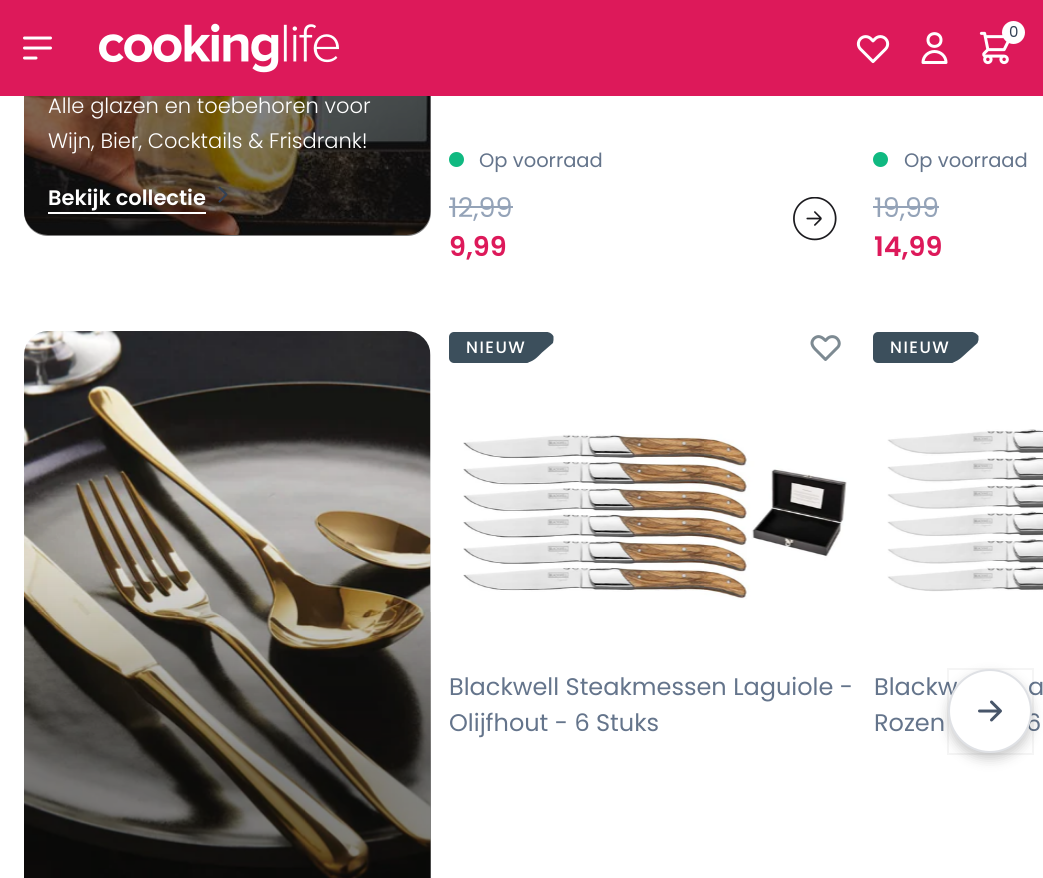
#include <cairo.h>
#include <math.h>
#include <stddef.h>

static cairo_t *c;
static void C(unsigned color){cairo_set_source_rgb(c, (color >> 16) / 255.0, (color >> 8 & 255) / 255.0, (color & 255) / 255.0);}
static void F(const char *family, double size, int italic, int bold){cairo_select_font_face(c, family, italic ? CAIRO_FONT_SLANT_ITALIC : CAIRO_FONT_SLANT_NORMAL,bold ? CAIRO_FONT_WEIGHT_BOLD : CAIRO_FONT_WEIGHT_NORMAL);cairo_set_font_size(c, size);}
static void T(double x, double y, const char *s){cairo_move_to(c, x, y);cairo_show_text(c, s);}
static void L(double x, double y, const char *s, double letter, double word){cairo_move_to(c, x, y);while (*s) {char ch[5] = {0};int n = 0;do ch[n++] = *s++; while ((*s & 0xC0) == 0x80);cairo_show_text(c, ch);cairo_rel_move_to(c, letter + word * (*ch == ' '), 0);}}
static void R(double x, double y, double w, double h){cairo_rectangle(c, x, y, w, h);cairo_fill(c);}
static void Q(double x, double y, double w, double h, double r){cairo_new_sub_path(c);cairo_arc(c, x + w - r, y + h - r, r, 0, M_PI / 2);cairo_arc(c, x + r, y + h - r, r, M_PI / 2, M_PI);cairo_arc(c, x + r, y + r, r, M_PI, 1.5 * M_PI);cairo_arc(c, x + w - r, y + r, r, 1.5 * M_PI, 2 * M_PI);cairo_close_path(c);}
static void S(double x, double y, double w, double h, double r, double blur, double alpha){cairo_push_group_with_content(c, CAIRO_CONTENT_ALPHA);cairo_set_operator(c, CAIRO_OPERATOR_SOURCE);for (int i = 15; i >= -15 && fmin(w, h) + blur * i / 3 > 0; i -= 2) {double e = blur * i / 6;cairo_set_source_rgba(c, 0, 0, 0, alpha * erfc((i - 1) / 8.5) / 2);Q(x - e, y - e, w + 2 * e, h + 2 * e, fmax(0, fmin(r + e + blur * .6, fmin(w, h) / 2 + e)));cairo_fill(c);}cairo_pattern_t *soft = cairo_pop_group(c);cairo_mask(c, soft);cairo_pattern_destroy(soft);}
static void I(const char *path, double x, double y, double w, double h){cairo_surface_t *image = cairo_image_surface_create_from_png(path);cairo_save(c);cairo_set_source_surface(c, image, x, y);cairo_rectangle(c, x, y, w, h);cairo_fill(c);cairo_restore(c);cairo_surface_destroy(image);}
int main(void) {
cairo_surface_t *surface = cairo_image_surface_create(CAIRO_FORMAT_RGB24, 1043, 878);
c = cairo_create(surface);
cairo_font_options_t *options = cairo_font_options_create();
cairo_font_options_set_hint_metrics(options, CAIRO_HINT_METRICS_OFF);
cairo_font_options_set_hint_style(options, CAIRO_HINT_STYLE_NONE);
cairo_set_font_options(c, options);
cairo_set_miter_limit(c, 4);
cairo_pattern_t *gradient;
C(0xffffff);
cairo_paint(c);
I("4.png",24,96,407,139);
gradient = cairo_pattern_create_linear(227,236,227,-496);
cairo_pattern_add_color_stop_rgba(gradient,.4,0,0,0,.5);
cairo_pattern_add_color_stop_rgba(gradient,.7,0,0,0,.1);
cairo_pattern_add_color_stop_rgba(gradient,1,0,0,0,0);
cairo_set_source(c,gradient);
cairo_pattern_destroy(gradient);
Q(24,-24,407,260,24);
cairo_fill(c);
C(0xdd195a);
R(0,0,1043,96);
I("1.png",99,23,240,50);
I("2.png",856,35,34,29);
cairo_new_path(c);
cairo_move_to(c,941,40);
cairo_curve_to(c,941,48.5,928,48.5,928,40);
cairo_curve_to(c,928,31.5,941,31.5,941,40);
cairo_close_path(c);
cairo_move_to(c,934.5,51.5);
cairo_curve_to(c,928,51.5,923,56.5,923,62.5);
cairo_line_to(c,946,62.5);
cairo_curve_to(c,946,56.5,941,51.5,934.5,51.5);
cairo_close_path(c);
C(0xffffff);
cairo_set_line_width(c,3);
cairo_set_line_cap(c,CAIRO_LINE_CAP_ROUND);
cairo_set_line_join(c,CAIRO_LINE_JOIN_ROUND);
cairo_stroke(c);
I("3.png",979,31,30,34);
cairo_arc(c,1013.5,32.5,11.5,0,2 * M_PI);
cairo_fill(c);
F("Poppins",15,0,0);
C(0x334155);
T(1009,37,"0");
cairo_new_path(c);
cairo_move_to(c,24.5,38);
cairo_line_to(c,50.5,38);
cairo_move_to(c,24.5,48);
cairo_line_to(c,50.5,48);
cairo_move_to(c,24.5,58);
cairo_line_to(c,36,58);
C(0xffffff);
cairo_stroke(c);
F("Poppins Light",21,0,0);
T(48,113,"Alle glazen en toebehoren voor");
T(48,148,"Wijn, Bier, Cocktails & Frisdrank!");
F("Poppins SemiBold",21,0,0);
T(48,205,"Bekijk collectie");
R(48,212,158,2);
I("5.png",218,186,10,17);
C(0x10b981);
cairo_arc(c,456.5,159.5,7.5,0,2 * M_PI);
cairo_fill(c);
F("Poppins",19.5,0,0);
C(0x64748b);
T(479,167,"Op voorraad");
F("Poppins",27,0,0);
C(0x94a3b8);
T(449,217,"12,99");
R(449,206,64,2);
F("Poppins SemiBold",27,0,0);
C(0xdd195a);
T(449,256,"9,99");
I("6.png",793,197,44,44);
C(0x10b981);
cairo_arc(c,880.5,159.5,7.5,0,2 * M_PI);
cairo_fill(c);
F("Poppins",19.5,0,0);
C(0x64748b);
T(904,167,"Op voorraad");
F("Poppins",27,0,0);
C(0x94a3b8);
T(874,217,"19,99");
R(873,206,66,2);
F("Poppins SemiBold",27,0,0);
C(0xdd195a);
T(874,256,"14,99");
I("7.png",24,331,407,547);
gradient = cairo_pattern_create_linear(227,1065,227,332);
cairo_pattern_add_color_stop_rgba(gradient,.4,0,0,0,.5);
cairo_pattern_add_color_stop_rgba(gradient,.7,0,0,0,.1);
cairo_pattern_add_color_stop_rgba(gradient,1,0,0,0,0);
cairo_set_source(c,gradient);
cairo_pattern_destroy(gradient);
R(24,379,407,499);
C(0x3c4f5c);
Q(449,332,82,31,5);
cairo_fill(c);
F("Poppins Medium",16.5,0,0);
C(0xffffff);
L(466,353,"NIEUW",1.5,0);
C(0x3c4f5c);
cairo_new_path(c);
cairo_move_to(c,525,363);
cairo_line_to(c,525,332);
cairo_line_to(c,547.5,332);
cairo_curve_to(c,550,332.5,552.5,334,553.5,336.5);
cairo_line_to(c,553.5,340);
cairo_line_to(c,553,343);
cairo_line_to(c,542,352.5);
cairo_curve_to(c,536.5,358,533,362,525,363);
cairo_close_path(c);
cairo_fill(c);
cairo_new_path(c);
cairo_move_to(c,814,338.5);
cairo_curve_to(c,809,344,814.5,348.5,818,352);
cairo_line_to(c,825.5,359.5);
cairo_line_to(c,837,348);
cairo_curve_to(c,840,345.5,840,341.5,837,338.5);
cairo_curve_to(c,834.5,336,830,336,827.5,338.5);
cairo_line_to(c,825.5,340.5);
cairo_curve_to(c,822.5,337.5,818.5,334.5,814,338.5);
cairo_close_path(c);
C(0x7d8a92);
cairo_stroke(c);
I("8.png",463,434,384,166);
F("Poppins",24,0,0);
C(0x64748b);
T(449,695,"Blackwell Steakmessen Laguiole -");
T(449,731,"Olijfhout - 6 Stuks");
C(0x3c4f5c);
Q(873,332,83,31,5);
cairo_fill(c);
F("Poppins Medium",16.5,0,0);
C(0xffffff);
L(890,353,"NIEUW",1.5,0);
C(0x3c4f5c);
cairo_new_path(c);
cairo_move_to(c,950,363);
cairo_line_to(c,950,332);
cairo_line_to(c,972.5,332);
cairo_curve_to(c,975,332.5,977,334,978.5,336);
cairo_line_to(c,978.5,340);
cairo_line_to(c,977.5,343);
cairo_line_to(c,967,352.5);
cairo_curve_to(c,961.5,357.5,957.5,362,950,363);
cairo_close_path(c);
cairo_fill(c);
I("9.png",887,429,156,163);
F("Poppins",24,0,0);
C(0x64748b);
T(874,695,"Blackw");
T(1028,695,"a");
T(874,731,"Rozen");
T(1026,731,"6");
C(0x000000);
S(948,675,84,84,42,6,.2);
cairo_rectangle(c,948,669,85,85);
cairo_set_source_rgba(c,0,0,0,0.04);
cairo_set_line_width(c,2);
cairo_set_line_cap(c,CAIRO_LINE_CAP_BUTT);
cairo_set_line_join(c,CAIRO_LINE_JOIN_MITER);
cairo_stroke(c);
C(0xffffff);
cairo_arc(c,990,711,41,0,2 * M_PI);
cairo_fill_preserve(c);
C(0xdfe1e5);
cairo_stroke(c);
I("10.png",978,700,24,22);
cairo_surface_write_to_png(surface, "o.png");
cairo_font_options_destroy(options);
cairo_destroy(c);
cairo_surface_destroy(surface);
return 0;
}
